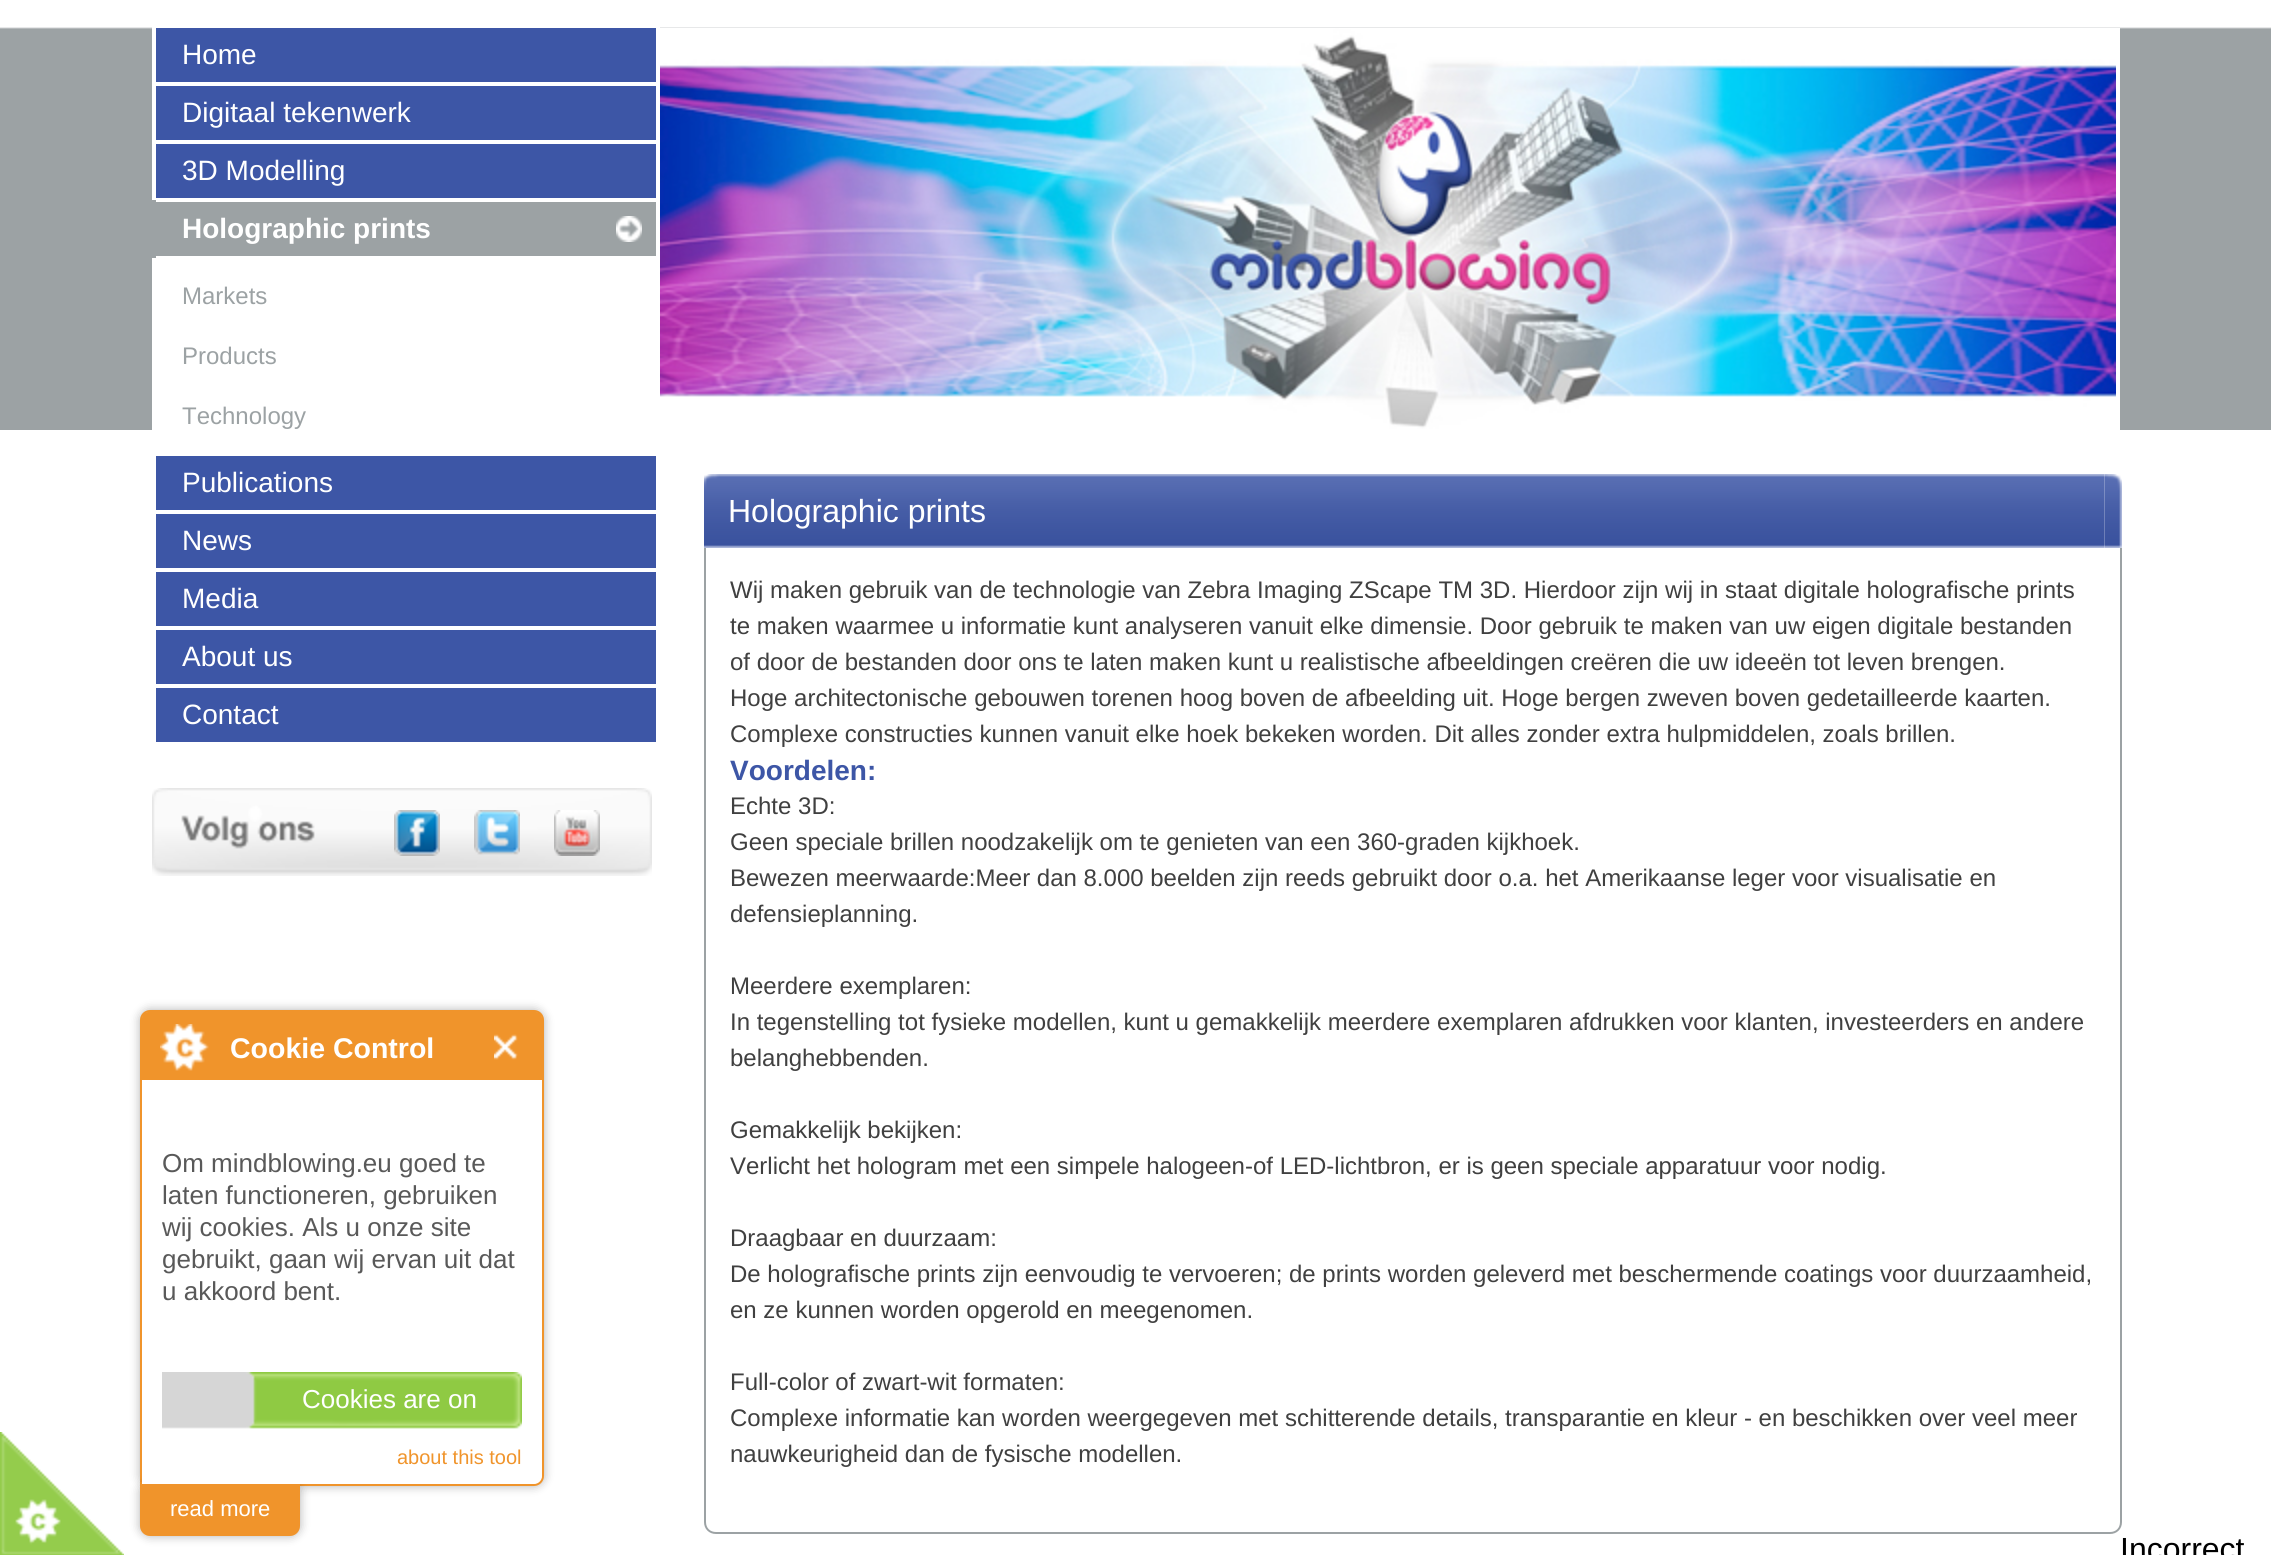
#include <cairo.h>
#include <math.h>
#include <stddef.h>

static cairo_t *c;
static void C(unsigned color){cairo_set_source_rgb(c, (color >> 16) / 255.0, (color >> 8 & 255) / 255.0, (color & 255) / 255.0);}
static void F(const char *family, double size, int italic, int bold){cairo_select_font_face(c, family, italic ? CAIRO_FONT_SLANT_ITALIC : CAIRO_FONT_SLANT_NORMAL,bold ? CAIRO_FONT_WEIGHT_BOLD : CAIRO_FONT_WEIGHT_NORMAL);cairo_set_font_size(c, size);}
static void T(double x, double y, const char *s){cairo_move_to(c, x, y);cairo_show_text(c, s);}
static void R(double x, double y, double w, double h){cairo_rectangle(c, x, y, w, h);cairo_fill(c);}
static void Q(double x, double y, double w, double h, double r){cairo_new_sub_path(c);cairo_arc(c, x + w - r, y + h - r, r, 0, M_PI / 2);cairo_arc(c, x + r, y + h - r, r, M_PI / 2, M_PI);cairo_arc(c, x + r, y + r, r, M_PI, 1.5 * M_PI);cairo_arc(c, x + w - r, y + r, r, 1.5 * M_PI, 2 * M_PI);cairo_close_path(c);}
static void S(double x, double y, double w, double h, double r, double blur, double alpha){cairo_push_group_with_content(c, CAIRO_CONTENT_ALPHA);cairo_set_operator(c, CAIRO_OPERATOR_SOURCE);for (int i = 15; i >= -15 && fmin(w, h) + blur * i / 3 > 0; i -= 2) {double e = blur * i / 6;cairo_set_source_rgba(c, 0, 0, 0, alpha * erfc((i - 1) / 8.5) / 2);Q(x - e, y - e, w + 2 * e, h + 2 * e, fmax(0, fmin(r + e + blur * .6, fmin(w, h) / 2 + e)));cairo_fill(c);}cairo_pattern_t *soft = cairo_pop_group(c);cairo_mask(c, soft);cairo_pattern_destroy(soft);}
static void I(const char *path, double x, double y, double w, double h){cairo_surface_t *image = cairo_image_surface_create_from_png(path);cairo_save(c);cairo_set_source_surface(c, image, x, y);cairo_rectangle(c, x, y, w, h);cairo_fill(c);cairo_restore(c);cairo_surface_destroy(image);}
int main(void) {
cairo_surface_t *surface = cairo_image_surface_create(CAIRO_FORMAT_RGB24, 2271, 1555);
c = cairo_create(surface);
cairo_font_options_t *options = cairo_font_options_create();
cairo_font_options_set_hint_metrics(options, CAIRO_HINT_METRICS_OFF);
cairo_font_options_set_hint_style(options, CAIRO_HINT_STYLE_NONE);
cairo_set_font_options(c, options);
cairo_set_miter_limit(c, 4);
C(0xffffff);
cairo_paint(c);
I("1.png",0,27,2271,403);
C(0x3d56a6);
R(156,28,500,54);
C(0xffffff);
R(152,27,508,1);
R(656,26,4,58);
R(152,82,508,4);
R(152,26,4,58);
F("Liberation Sans",28,0,0);
T(182,64,"Home");
C(0x3d56a6);
R(156,86,500,54);
C(0xffffff);
R(656,84,4,58);
R(152,140,508,4);
R(152,84,4,58);
T(182,122,"Digitaal tekenwerk");
C(0x3d56a6);
R(156,144,500,54);
C(0xffffff);
R(656,142,4,58);
R(152,198,508,2);
R(152,142,4,58);
T(182,180,"3D Modelling");
I("2.png",616,216,26,26);
R(156,200,504,2);
R(656,200,4,58);
R(156,256,504,2);
F("Liberation Sans",28,0,1);
T(182,238,"Holographic prints");
R(152,258,508,172);
F("Liberation Sans",24,0,0);
C(0x9ca2a4);
T(182,304,"Markets");
T(182,364,"Products");
T(182,424,"Technology");
C(0x3d56a6);
R(156,456,500,54);
F("Liberation Sans",28,0,0);
C(0xffffff);
T(182,492,"Publications");
C(0x3d56a6);
R(156,514,500,54);
C(0xffffff);
T(182,550,"News");
C(0x3d56a6);
R(156,572,500,54);
C(0xffffff);
T(182,608,"Media");
C(0x3d56a6);
R(156,630,500,54);
C(0xffffff);
T(182,666,"About us");
C(0x3d56a6);
R(156,688,500,54);
C(0xffffff);
T(182,724,"Contact");
I("3.png",152,788,500,88);
I("4.png",394,810,46,46);
I("5.png",474,810,46,45);
I("6.png",554,810,46,46);
I("7.png",660,28,1456,402);
R(2116,28,4,402);
I("8.png",2104,474,18,74);
I("9.png",704,474,1400,74);
F("Liberation Sans",32,0,0);
T(728,522,"Holographic prints");
C(0x9ca2a4);
cairo_set_fill_rule(c,CAIRO_FILL_RULE_EVEN_ODD);
cairo_new_path(c);
cairo_move_to(c,704,548);
cairo_line_to(c,2122,548);
cairo_line_to(c,2122,1522);
cairo_curve_to(c,2122,1529,2117,1534,2110,1534);
cairo_line_to(c,716,1534);
cairo_curve_to(c,709,1534,704,1529,704,1522);
cairo_close_path(c);
cairo_move_to(c,706,548);
cairo_line_to(c,2120,548);
cairo_line_to(c,2120,1522);
cairo_curve_to(c,2120,1528,2116,1532,2110,1532);
cairo_line_to(c,716,1532);
cairo_curve_to(c,710,1532,706,1528,706,1522);
cairo_close_path(c);
cairo_fill(c);
F("Liberation Sans",24,0,0);
C(0x404040);
T(730,598,"Wij maken gebruik van de technologie van Zebra Imaging ZScape TM 3D. Hierdoor zijn wij in staat digitale holografische prints");
T(730,634,"te maken waarmee u informatie kunt analyseren vanuit elke dimensie. Door gebruik te maken van uw eigen digitale bestanden");
T(730,670,"of door de bestanden door ons te laten maken kunt u realistische afbeeldingen creëren die uw ideeën tot leven brengen.");
T(730,706,"Hoge architectonische gebouwen torenen hoog boven de afbeelding uit. Hoge bergen zweven boven gedetailleerde kaarten.");
T(730,742,"Complexe constructies kunnen vanuit elke hoek bekeken worden. Dit alles zonder extra hulpmiddelen, zoals brillen.");
F("Liberation Sans",28,0,1);
C(0x3d56a6);
T(730,780,"Voordelen:");
F("Liberation Sans",24,0,0);
C(0x404040);
T(730,814,"Echte 3D:");
T(730,850,"Geen speciale brillen noodzakelijk om te genieten van een 360-graden kijkhoek.");
T(730,886,"Bewezen meerwaarde:Meer dan 8.000 beelden zijn reeds gebruikt door o.a. het Amerikaanse leger voor visualisatie en");
T(730,922,"defensieplanning.");
T(730,994,"Meerdere exemplaren:");
T(730,1030,"In tegenstelling tot fysieke modellen, kunt u gemakkelijk meerdere exemplaren afdrukken voor klanten, investeerders en andere");
T(730,1066,"belanghebbenden.");
T(730,1138,"Gemakkelijk bekijken:");
T(730,1174,"Verlicht het hologram met een simpele halogeen-of LED-lichtbron, er is geen speciale apparatuur voor nodig.");
T(730,1246,"Draagbaar en duurzaam:");
T(730,1282,"De holografische prints zijn eenvoudig te vervoeren; de prints worden geleverd met beschermende coatings voor duurzaamheid,");
T(730,1318,"en ze kunnen worden opgerold en meegenomen.");
T(730,1390,"Full-color of zwart-wit formaten:");
T(730,1426,"Complexe informatie kan worden weergegeven met schitterende details, transparantie en kleur - en beschikken over veel meer");
T(730,1462,"nauwkeurigheid dan de fysische modellen.");
I("10.png",0,1432,124,123);
C(0x000000);
S(140,1010,404,476,10,5,.3);
C(0xffffff);
cairo_new_path(c);
cairo_move_to(c,150,1011);
cairo_line_to(c,534,1011);
cairo_curve_to(c,539,1011,543,1015,543,1020);
cairo_line_to(c,543,1476);
cairo_curve_to(c,543,1481,539,1485,534,1485);
cairo_line_to(c,141,1485);
cairo_line_to(c,141,1020);
cairo_curve_to(c,141,1015,145,1011,150,1011);
cairo_close_path(c);
cairo_fill_preserve(c);
C(0xf0942b);
cairo_stroke(c);
C(0x000000);
S(140,1482,160,54,10,5,.3);
C(0xf0942b);
cairo_new_path(c);
cairo_move_to(c,140,1482);
cairo_line_to(c,300,1482);
cairo_line_to(c,300,1526);
cairo_curve_to(c,300,1531.5,295.5,1536,290,1536);
cairo_line_to(c,150,1536);
cairo_curve_to(c,144.5,1536,140,1531.5,140,1526);
cairo_close_path(c);
cairo_fill(c);
C(0xffffff);
cairo_new_path(c);
cairo_move_to(c,152,1012);
cairo_line_to(c,532,1012);
cairo_curve_to(c,537.5,1012,542,1016.5,542,1022);
cairo_line_to(c,542,1474);
cairo_curve_to(c,542,1479.5,537.5,1484,532,1484);
cairo_line_to(c,142,1484);
cairo_line_to(c,142,1022);
cairo_curve_to(c,142,1016.5,146.5,1012,152,1012);
cairo_close_path(c);
cairo_fill(c);
C(0xf0942b);
cairo_new_path(c);
cairo_move_to(c,148,1012);
cairo_line_to(c,536,1012);
cairo_curve_to(c,539.5,1012,542,1014.5,542,1018);
cairo_line_to(c,542,1080);
cairo_line_to(c,142,1080);
cairo_line_to(c,142,1018);
cairo_curve_to(c,142,1014.5,144.5,1012,148,1012);
cairo_close_path(c);
cairo_fill(c);
I("11.png",160,1024,49,47);
F("Liberation Sans",28.5,0,1);
C(0xffffff);
T(230,1058,"Cookie Control");
I("12.png",494,1034,24,26);
F("Liberation Sans",26,0,0);
C(0x595959);
T(162,1172,"Om mindblowing.eu goed te");
T(162,1204,"laten functioneren, gebruiken");
T(162,1236,"wij cookies. Als u onze site");
T(162,1268,"gebruikt, gaan wij ervan uit dat");
T(162,1300,"u akkoord bent.");
I("13.png",162,1372,360,57);
C(0xffffff);
T(302,1408,"Cookies are on");
F("Liberation Sans",20,0,0);
C(0xf0942b);
T(397,1464,"about this tool");
F("Liberation Sans",22,0,0);
C(0xffffff);
T(170,1516,"read more");
F("Liberation Sans",32,0,0);
C(0x000000);
T(2120,1560,"Incorrect");
cairo_surface_write_to_png(surface, "o.png");
cairo_font_options_destroy(options);
cairo_destroy(c);
cairo_surface_destroy(surface);
return 0;
}
